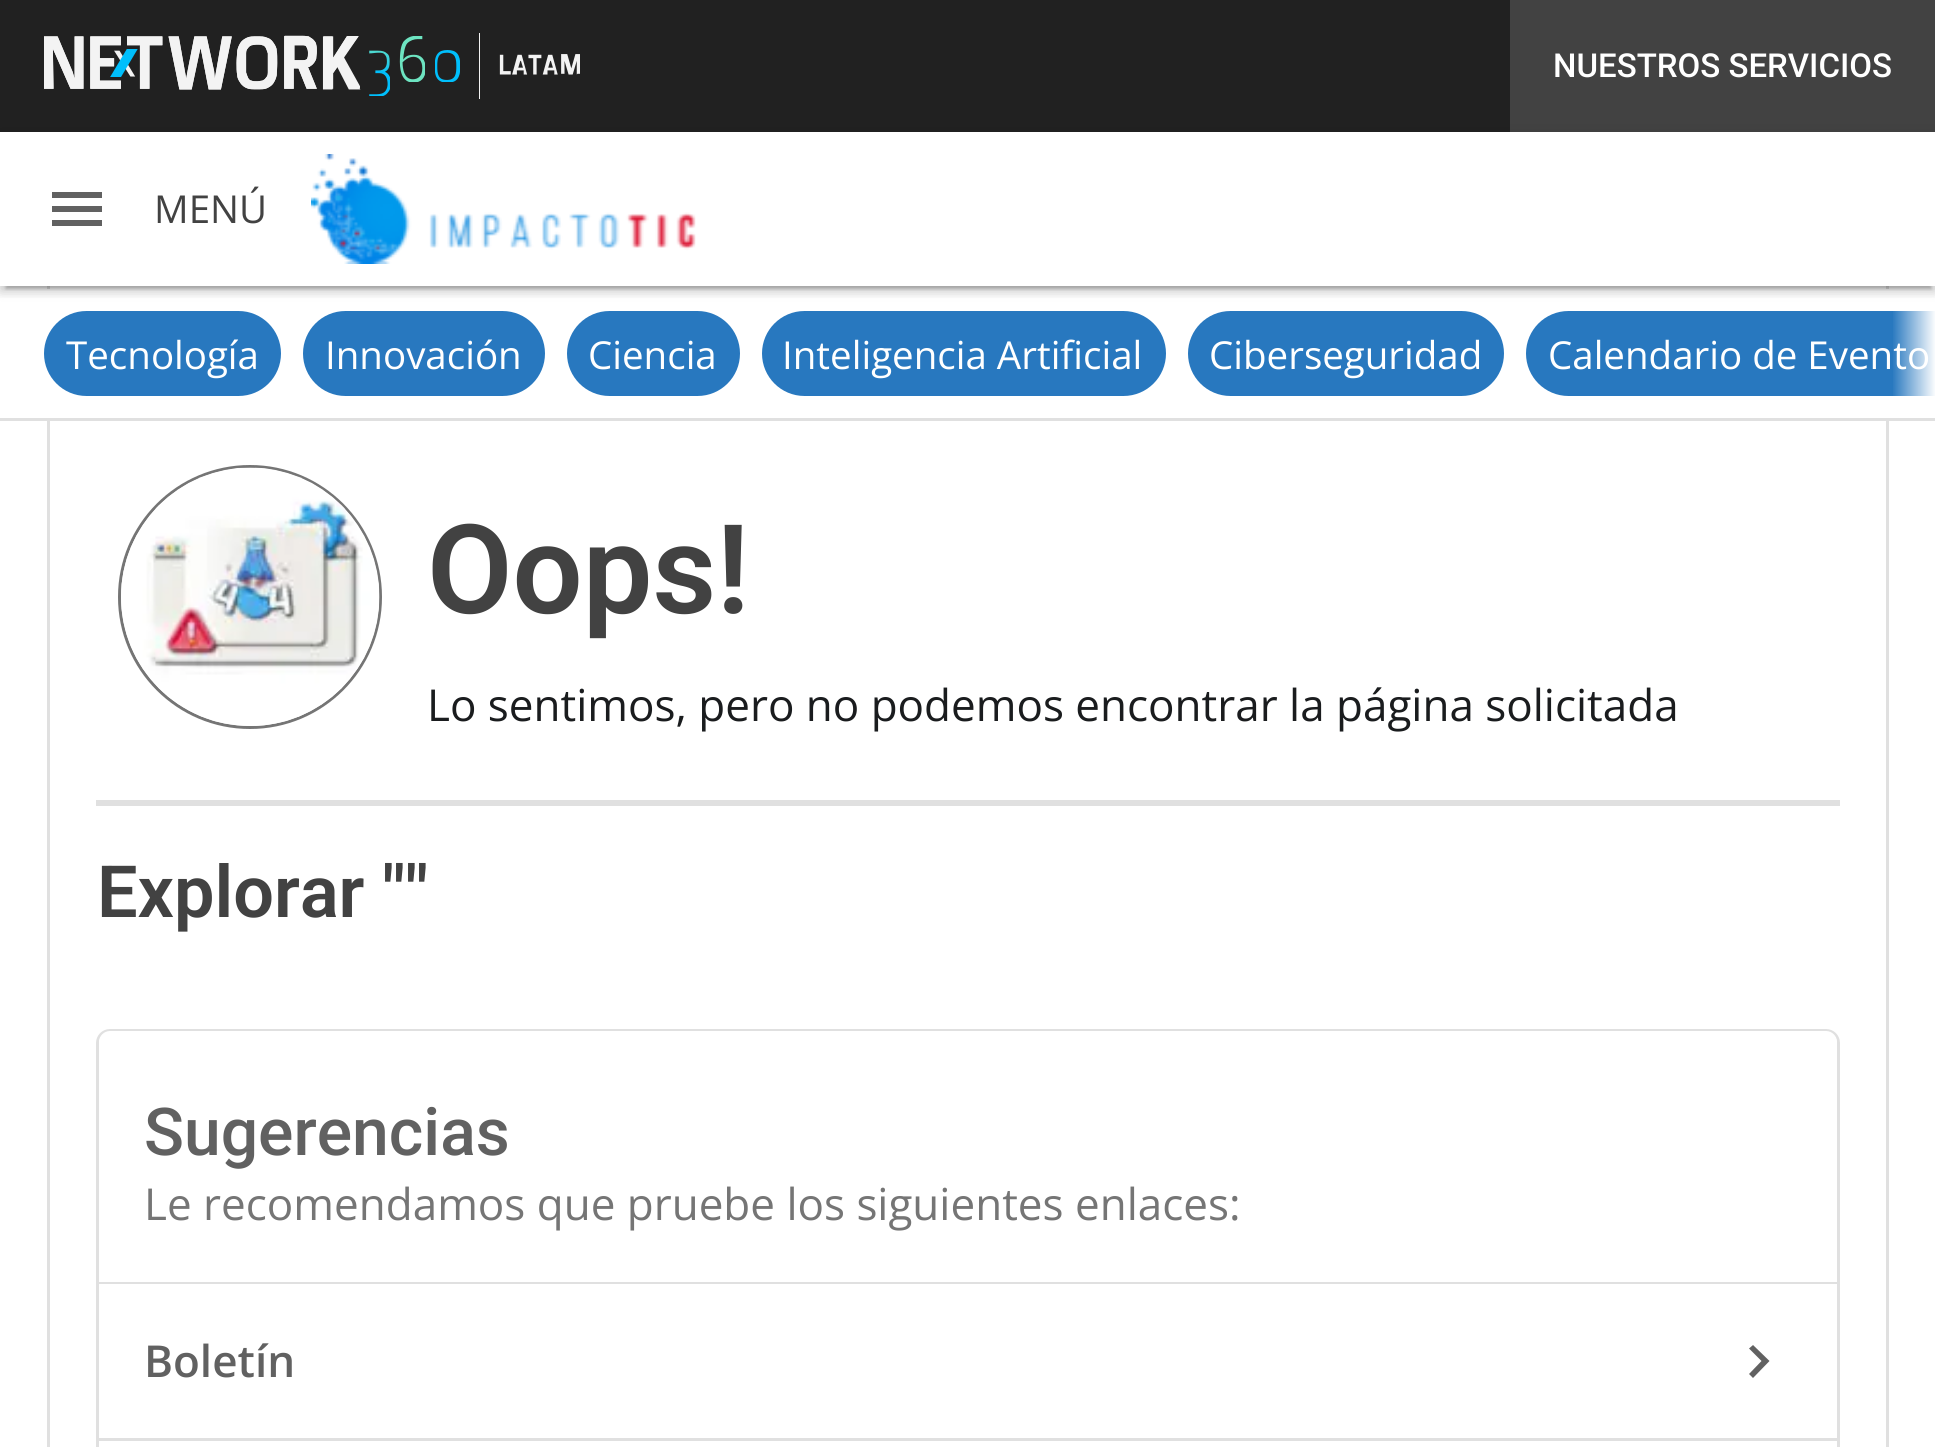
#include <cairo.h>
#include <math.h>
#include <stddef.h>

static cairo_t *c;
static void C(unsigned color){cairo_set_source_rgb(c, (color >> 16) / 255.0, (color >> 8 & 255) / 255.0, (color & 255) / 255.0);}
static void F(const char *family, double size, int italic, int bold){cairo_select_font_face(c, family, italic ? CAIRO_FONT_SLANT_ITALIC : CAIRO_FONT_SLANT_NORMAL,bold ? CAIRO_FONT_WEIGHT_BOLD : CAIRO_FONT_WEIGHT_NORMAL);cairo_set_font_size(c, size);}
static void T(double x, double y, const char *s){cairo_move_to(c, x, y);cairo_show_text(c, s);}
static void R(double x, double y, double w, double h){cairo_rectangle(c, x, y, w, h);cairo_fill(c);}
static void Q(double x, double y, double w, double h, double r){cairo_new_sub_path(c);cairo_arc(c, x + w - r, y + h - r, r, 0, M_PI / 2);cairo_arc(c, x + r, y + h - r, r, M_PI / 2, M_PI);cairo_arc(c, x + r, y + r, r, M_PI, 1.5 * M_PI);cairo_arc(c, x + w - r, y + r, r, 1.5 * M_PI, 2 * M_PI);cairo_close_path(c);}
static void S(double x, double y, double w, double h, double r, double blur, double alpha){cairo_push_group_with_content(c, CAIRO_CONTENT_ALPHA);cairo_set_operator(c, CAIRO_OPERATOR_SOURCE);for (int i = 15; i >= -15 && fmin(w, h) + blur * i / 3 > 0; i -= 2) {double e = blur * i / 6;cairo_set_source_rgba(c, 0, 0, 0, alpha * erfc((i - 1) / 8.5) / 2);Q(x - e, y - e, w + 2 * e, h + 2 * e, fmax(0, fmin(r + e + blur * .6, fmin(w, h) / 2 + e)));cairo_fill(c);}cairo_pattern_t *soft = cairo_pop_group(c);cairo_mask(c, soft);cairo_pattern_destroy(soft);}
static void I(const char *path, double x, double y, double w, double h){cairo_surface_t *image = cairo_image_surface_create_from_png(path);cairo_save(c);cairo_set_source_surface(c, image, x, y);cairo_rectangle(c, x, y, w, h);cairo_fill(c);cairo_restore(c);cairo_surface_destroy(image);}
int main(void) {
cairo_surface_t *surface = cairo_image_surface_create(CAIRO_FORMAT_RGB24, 1935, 1447);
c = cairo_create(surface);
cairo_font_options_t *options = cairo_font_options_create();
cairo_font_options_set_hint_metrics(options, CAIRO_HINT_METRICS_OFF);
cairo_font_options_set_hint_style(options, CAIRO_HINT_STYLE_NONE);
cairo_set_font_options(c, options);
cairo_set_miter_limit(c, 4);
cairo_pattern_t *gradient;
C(0xffffff);
cairo_paint(c);
cairo_arc(c,250,597,130.5,0,2 * M_PI);
C(0x757575);
cairo_set_line_width(c,3);
cairo_stroke(c);
I("3.png",121,467,259,259);
C(0xe0e0e0);
R(96,800,1744,6);
cairo_rectangle(c,48.5,1.5,1839,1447);
cairo_stroke(c);
C(0x212121);
R(0,0,1510,132);
I("1.png",44,33,536,66);
C(0x424242);
R(1510,0,425,132);
F("Roboto Medium",33,0,0);
C(0xffffff);
T(1553,77,"NUESTROS SERVICIOS");
R(1886,132,3,154);
R(47,289,1842,129);
cairo_save(c);
cairo_rectangle(c,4,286,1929,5);
cairo_clip(c);
C(0x000000);
S(6,146,1925,143,0,1.5,.2);
cairo_restore(c);
cairo_save(c);
cairo_set_fill_rule(c,CAIRO_FILL_RULE_EVEN_ODD);
cairo_new_path(c);
cairo_move_to(c,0,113);
cairo_line_to(c,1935,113);
cairo_line_to(c,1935,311);
cairo_line_to(c,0,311);
cairo_close_path(c);
cairo_move_to(c,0,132);
cairo_line_to(c,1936,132);
cairo_line_to(c,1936,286);
cairo_line_to(c,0,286);
cairo_close_path(c);
cairo_clip(c);
C(0x000000);
S(0,135,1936,154,0,7,.12);
cairo_restore(c);
cairo_save(c);
cairo_rectangle(c,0,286,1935,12);
cairo_clip(c);
C(0x000000);
S(0,138,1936,154,0,5.5,.14);
cairo_restore(c);
R(47,132,3,154);
C(0x616161);
cairo_new_path(c);
cairo_move_to(c,52,226);
cairo_line_to(c,52,220);
cairo_line_to(c,102,220);
cairo_line_to(c,102,226);
cairo_close_path(c);
cairo_move_to(c,52,212);
cairo_line_to(c,52,206);
cairo_line_to(c,102,206);
cairo_line_to(c,102,212);
cairo_close_path(c);
cairo_move_to(c,52,198);
cairo_line_to(c,52,192);
cairo_line_to(c,102,192);
cairo_line_to(c,102,198);
cairo_close_path(c);
cairo_fill(c);
F("Open Sans",38.5,0,0);
C(0x424242);
T(154,223,"MENÚ");
I("2.png",311,154,385,110);
C(0xe0e0e0);
R(0,418,1935,3);
C(0x2878bf);
cairo_new_path(c);
cairo_move_to(c,1568.5,311);
cairo_line_to(c,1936,311);
cairo_line_to(c,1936,396);
cairo_line_to(c,1568.5,396);
cairo_curve_to(c,1545,396,1526,377,1526,353.5);
cairo_curve_to(c,1526,330,1545,311,1568.5,311);
cairo_close_path(c);
cairo_fill(c);
C(0xffffff);
T(1548,369,"Calendario de Evento");
gradient = cairo_pattern_create_linear(1892,353,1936,353);
cairo_pattern_add_color_stop_rgba(gradient,0,1,1,1,0);
cairo_pattern_add_color_stop_rgba(gradient,1,1,1,1,1);
cairo_set_source(c,gradient);
cairo_pattern_destroy(gradient);
R(1893,311,42,85);
C(0x2878bf);
Q(44,311,237,85,42.5);
cairo_fill(c);
C(0xffffff);
T(66,369,"Tecnología");
C(0x2878bf);
Q(303,311,242,85,42.5);
cairo_fill(c);
C(0xffffff);
T(325,369,"Innovación");
C(0x2878bf);
Q(567,311,173,85,42.5);
cairo_fill(c);
C(0xffffff);
T(588,369,"Ciencia");
C(0x2878bf);
Q(762,311,404,85,42.5);
cairo_fill(c);
C(0xffffff);
T(782,369,"Inteligencia Artificial");
C(0x2878bf);
Q(1188,311,316,85,42.5);
cairo_fill(c);
C(0xffffff);
T(1209,369,"Ciberseguridad");
F("Roboto SemiBold",124,0,0);
C(0x424242);
T(427,613,"Oops!");
F("Open Sans",44,0,0);
C(0x1a1c1e);
T(427,721,"Lo sentimos, pero no podemos encontrar la página solicitada");
F("Roboto SemiBold",72,0,0);
C(0x424242);
T(97,917,"Explorar \"\"");
Q(97.5,1030.5,1741,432,12.5);
C(0xe0e0e0);
cairo_stroke(c);
C(0xffffff);
cairo_new_path(c);
cairo_move_to(c,110,1031);
cairo_line_to(c,1826,1031);
cairo_curve_to(c,1832,1031,1837,1036,1837,1042);
cairo_line_to(c,1837,1284);
cairo_line_to(c,99,1284);
cairo_line_to(c,99,1042);
cairo_curve_to(c,99,1036,104,1031,110,1031);
cairo_close_path(c);
cairo_fill(c);
C(0xe0e0e0);
R(99,1282,1738,2);
F("Roboto Medium",66,0,0);
C(0x616161);
T(144,1155,"Sugerencias");
F("Open Sans",44,0,0);
C(0x757575);
T(144,1220,"Le recomendamos que pruebe los siguientes enlaces:");
C(0xe0e0e0);
R(99,1438,1738,3);
F("Open Sans SemiBold",44,0,0);
C(0x616161);
T(144,1377,"Boletín");
cairo_new_path(c);
cairo_move_to(c,1761.5,1361);
cairo_line_to(c,1749,1348.5);
cairo_line_to(c,1753,1345);
cairo_line_to(c,1769.5,1361);
cairo_line_to(c,1753,1378);
cairo_line_to(c,1749,1374);
cairo_close_path(c);
cairo_fill(c);
cairo_surface_write_to_png(surface, "o.png");
cairo_font_options_destroy(options);
cairo_destroy(c);
cairo_surface_destroy(surface);
return 0;
}
